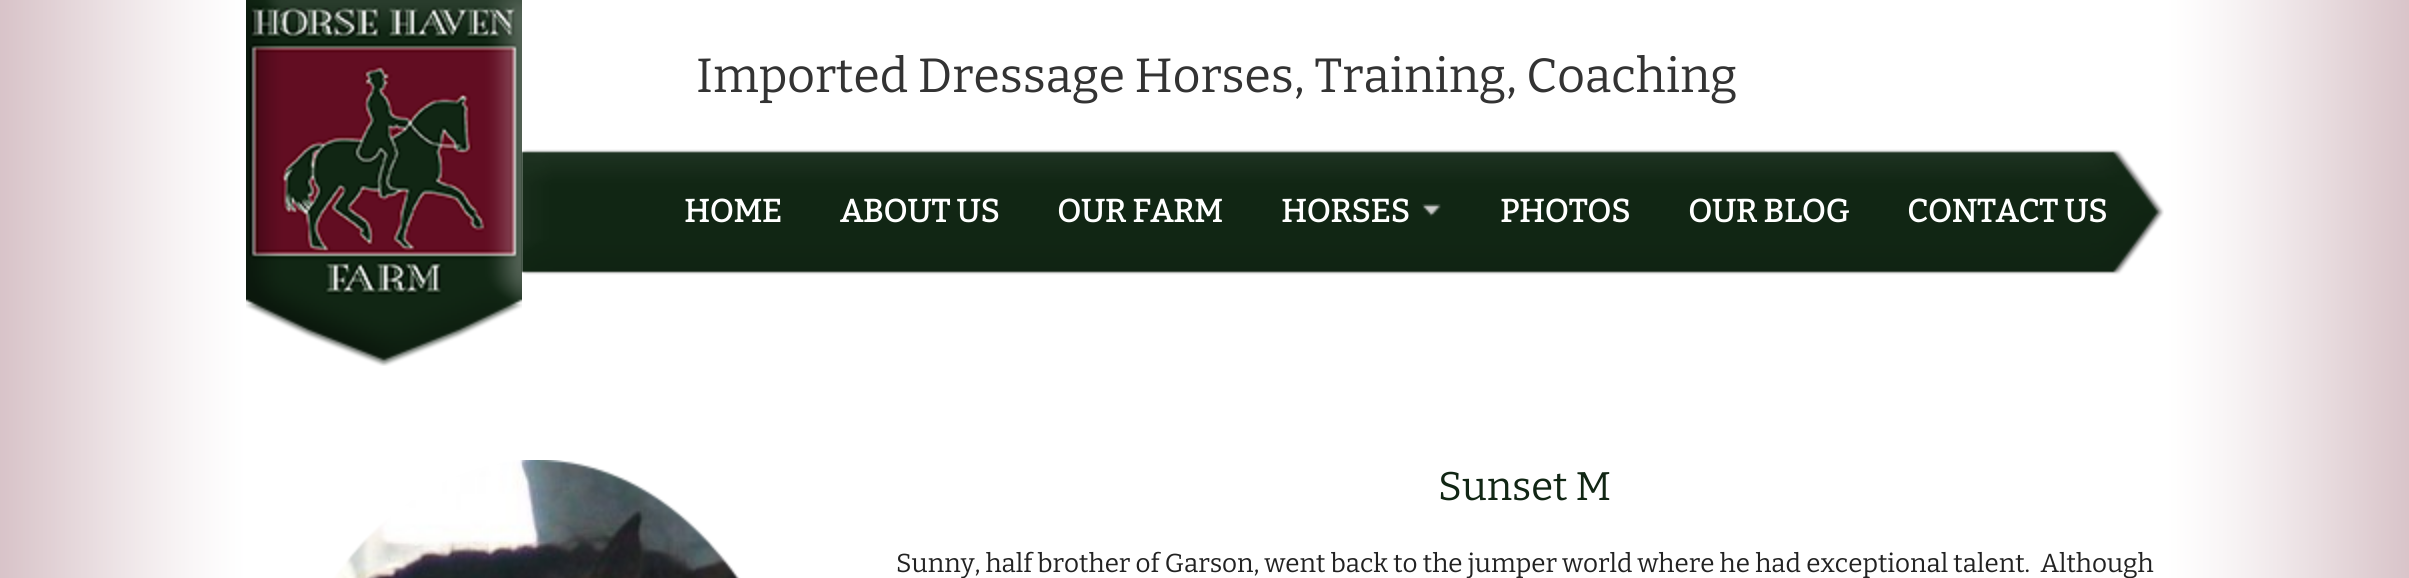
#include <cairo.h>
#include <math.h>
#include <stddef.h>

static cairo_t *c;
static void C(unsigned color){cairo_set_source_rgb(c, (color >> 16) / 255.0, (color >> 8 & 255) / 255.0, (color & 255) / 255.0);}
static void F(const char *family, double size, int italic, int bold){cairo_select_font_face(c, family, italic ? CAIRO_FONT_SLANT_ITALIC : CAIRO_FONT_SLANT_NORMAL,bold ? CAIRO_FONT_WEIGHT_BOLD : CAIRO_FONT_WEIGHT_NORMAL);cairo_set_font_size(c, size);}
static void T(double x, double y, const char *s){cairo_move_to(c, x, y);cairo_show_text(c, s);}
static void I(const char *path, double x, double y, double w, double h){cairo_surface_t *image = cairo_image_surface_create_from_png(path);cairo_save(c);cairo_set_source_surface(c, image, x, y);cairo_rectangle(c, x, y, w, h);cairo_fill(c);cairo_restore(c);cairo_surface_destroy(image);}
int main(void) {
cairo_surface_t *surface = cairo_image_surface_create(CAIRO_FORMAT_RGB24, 2409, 578);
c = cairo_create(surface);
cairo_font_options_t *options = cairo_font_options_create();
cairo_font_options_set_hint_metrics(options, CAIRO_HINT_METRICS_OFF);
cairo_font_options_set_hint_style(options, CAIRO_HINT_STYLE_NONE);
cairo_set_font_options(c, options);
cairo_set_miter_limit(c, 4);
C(0xffffff);
cairo_paint(c);
I("1.png",0,0,2409,578);
I("2.png",246,0,276,366);
F("Bitter Thin",48,0,0);
C(0x333333);
T(696,92,"Imported Dressage Horses, Training, Coaching");
I("3.png",521,149,1643,126);
F("Bitter",32,0,1);
C(0xffffff);
T(684,222,"HOME");
T(840,222,"ABOUT US");
T(1057,222,"OUR FARM");
T(1281,222,"HORSES");
I("4.png",1422,204,19,13);
T(1500,222,"PHOTOS");
T(1688,222,"OUR BLOG");
T(1907,222,"CONTACT US");
I("6.png",331,460,410,118);
I("5.png",246,460,580,118);
F("Bitter Thin",40,0,0);
C(0x112614);
T(1438,500,"Sunset M");
F("Bitter Thin",26,0,0);
C(0x222222);
T(896,572,"Sunny, half brother of Garson, went back to the jumper world where he had exceptional talent.  Although");
cairo_surface_write_to_png(surface, "o.png");
cairo_font_options_destroy(options);
cairo_destroy(c);
cairo_surface_destroy(surface);
return 0;
}
